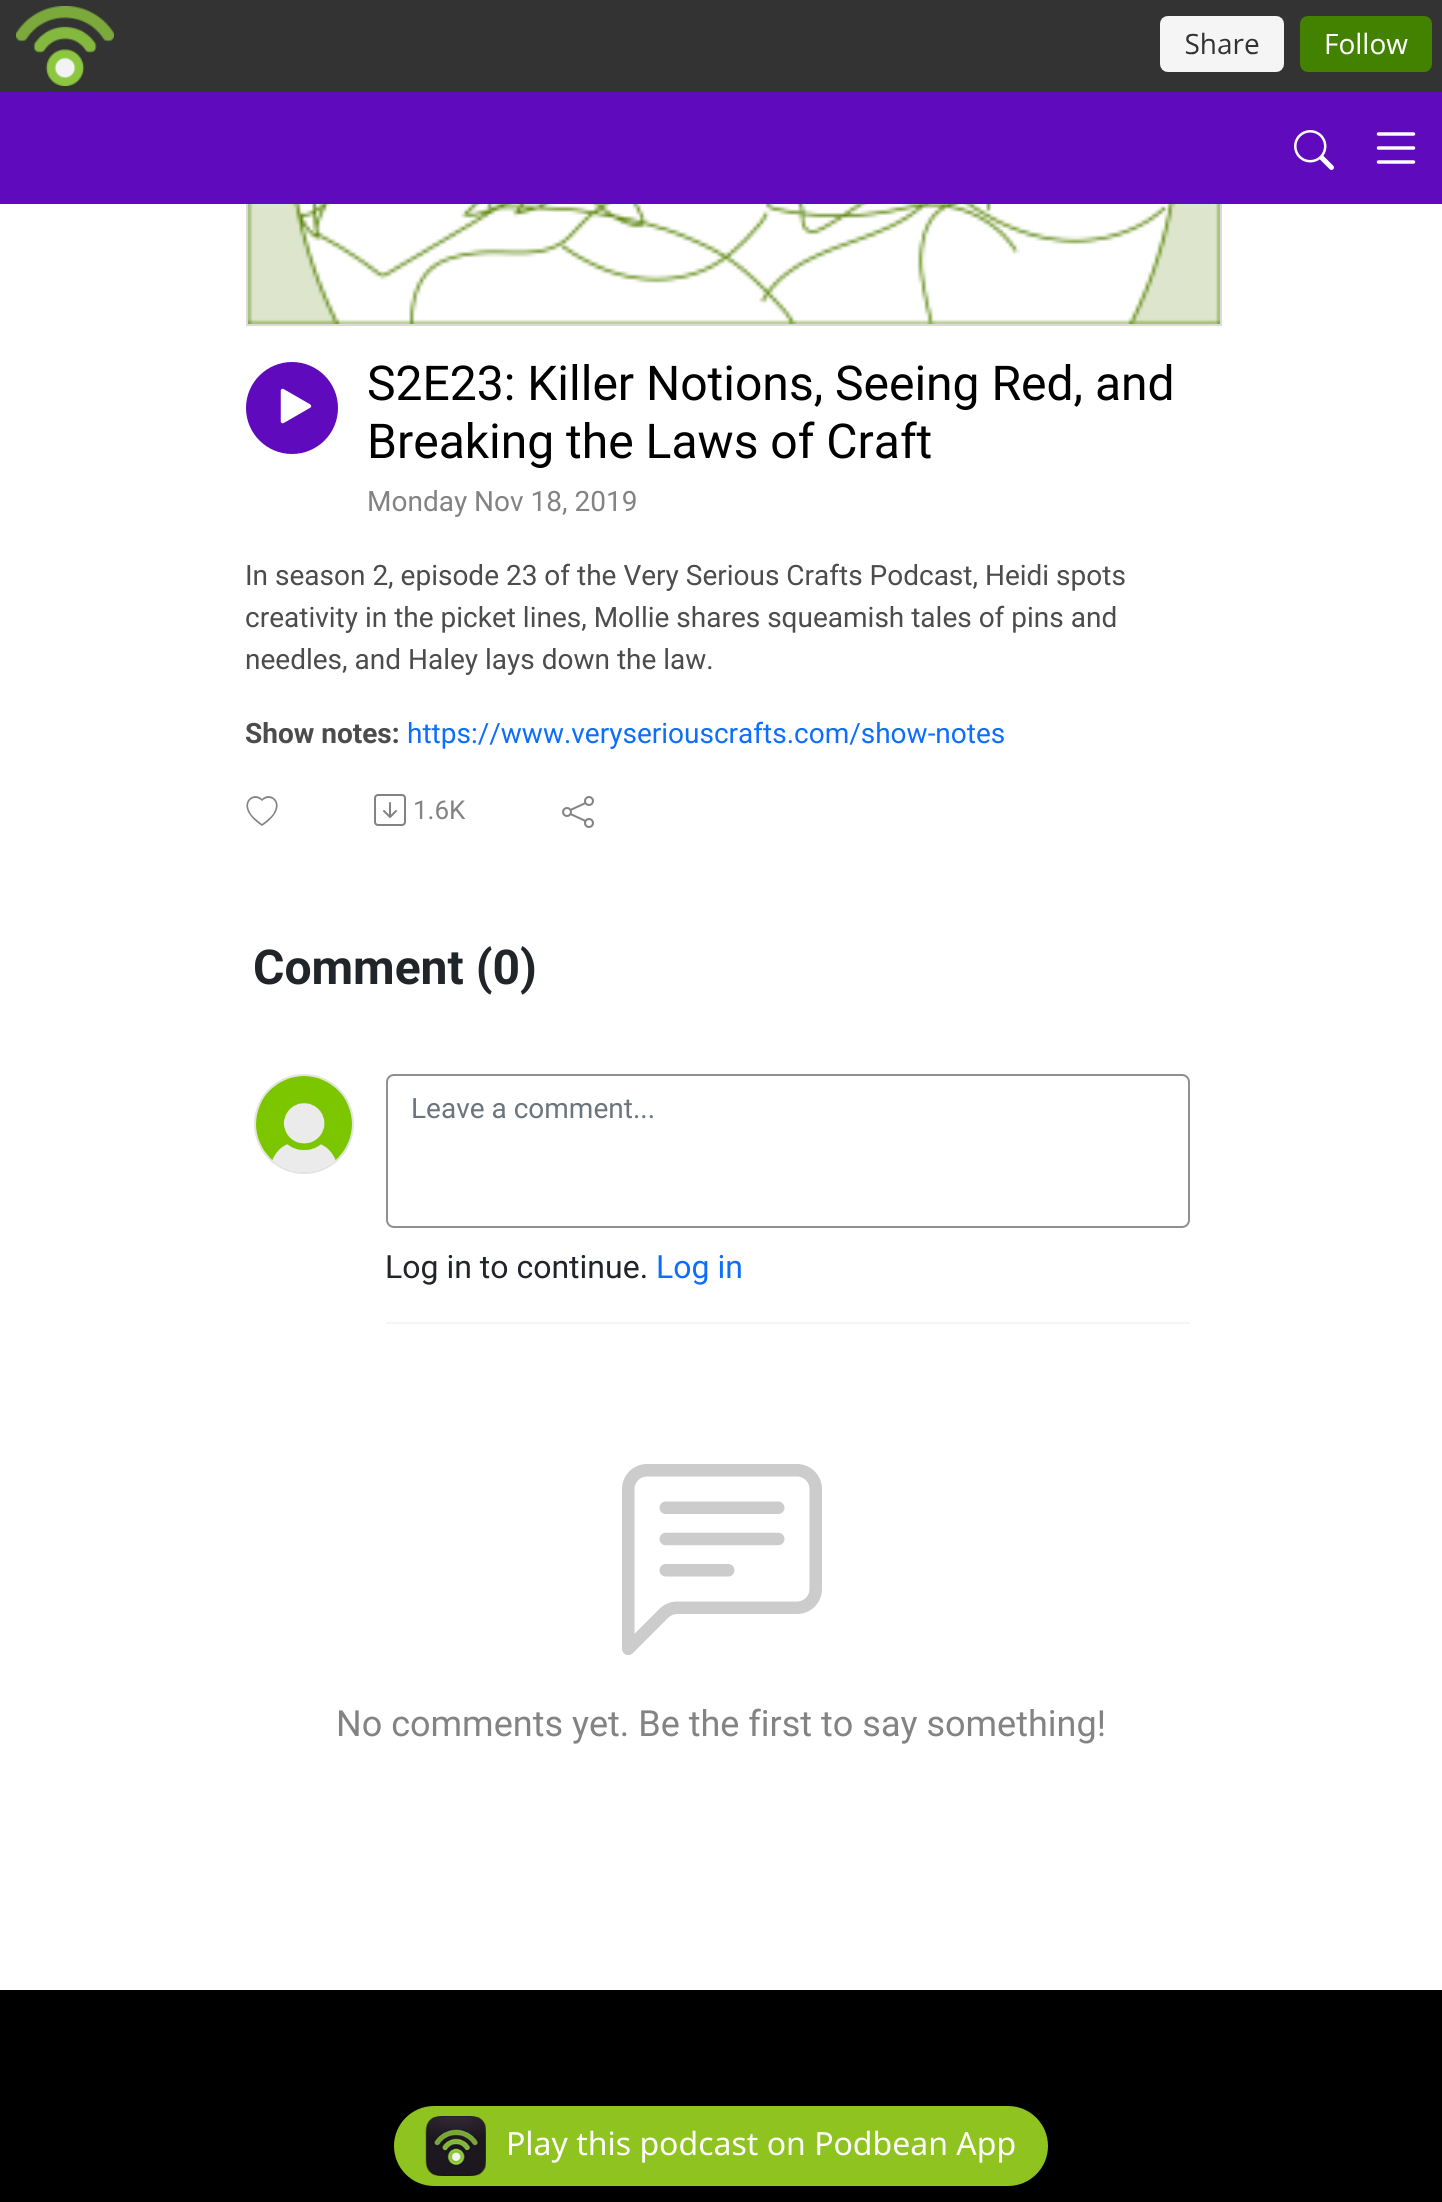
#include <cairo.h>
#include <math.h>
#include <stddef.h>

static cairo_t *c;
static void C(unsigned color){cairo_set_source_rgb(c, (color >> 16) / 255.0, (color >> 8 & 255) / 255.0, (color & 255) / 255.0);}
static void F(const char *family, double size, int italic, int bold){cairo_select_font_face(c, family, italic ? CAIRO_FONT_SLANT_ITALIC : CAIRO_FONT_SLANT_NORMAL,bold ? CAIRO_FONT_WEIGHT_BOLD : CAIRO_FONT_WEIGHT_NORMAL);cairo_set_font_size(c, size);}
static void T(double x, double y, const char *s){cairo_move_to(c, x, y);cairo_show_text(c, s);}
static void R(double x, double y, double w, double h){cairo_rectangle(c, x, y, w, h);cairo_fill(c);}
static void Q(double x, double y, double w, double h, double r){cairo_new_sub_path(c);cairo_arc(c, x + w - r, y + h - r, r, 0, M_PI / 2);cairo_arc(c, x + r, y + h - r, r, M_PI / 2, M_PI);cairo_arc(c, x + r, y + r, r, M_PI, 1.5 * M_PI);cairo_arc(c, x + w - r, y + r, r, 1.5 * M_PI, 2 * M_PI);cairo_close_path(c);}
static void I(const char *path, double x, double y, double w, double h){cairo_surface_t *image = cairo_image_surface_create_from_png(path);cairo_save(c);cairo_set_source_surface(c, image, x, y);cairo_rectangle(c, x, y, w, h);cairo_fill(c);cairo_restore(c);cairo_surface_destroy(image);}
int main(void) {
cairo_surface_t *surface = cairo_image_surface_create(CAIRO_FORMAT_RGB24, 1442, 2202);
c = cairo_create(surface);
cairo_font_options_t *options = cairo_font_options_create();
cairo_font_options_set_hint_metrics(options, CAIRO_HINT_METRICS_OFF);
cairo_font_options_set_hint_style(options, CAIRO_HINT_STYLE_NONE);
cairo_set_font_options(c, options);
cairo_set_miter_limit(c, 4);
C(0xffffff);
cairo_paint(c);
cairo_rectangle(c,247,-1,974,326);
C(0xdadada);
cairo_stroke(c);
C(0x333333);
R(0,0,1442,92);
I("1.png",16,6,1416,80);
C(0x600abe);
R(0,92,1442,112);
I("2.png",1294,130,40,40);
I("3.png",1376,132,40,32);
I("4.png",248,204,972,120);
cairo_arc(c,292,408,46,0,2 * M_PI);
cairo_fill(c);
I("5.png",280,388,32,36);
F("Roboto",48,0,0);
C(0x000000);
T(367,400,"S2E23: Killer Notions, Seeing Red, and");
T(367,458,"Breaking the Laws of Craft");
F("Roboto",28,0,0);
C(0x838383);
T(367,511,"Monday Nov 18, 2019");
C(0x4c4c4c);
T(245,585,"In season 2, episode 23 of the Very Serious Crafts Podcast, Heidi spots");
T(245,627,"creativity in the picket lines, Mollie shares squeamish tales of pins and");
T(245,669,"needles, and Haley lays down the law.");
F("Roboto",28,0,1);
T(245,743,"Show notes:");
F("Roboto",28,0,0);
C(0x0d6efd);
T(407,743,"https://www.veryseriouscrafts.com/show-notes");
C(0x838383);
cairo_new_path(c);
cairo_move_to(c,262,801);
cairo_curve_to(c,255,794,245,800,249,810);
cairo_curve_to(c,251,816,257,820,262,824);
cairo_curve_to(c,267,820,273,816,275,810);
cairo_curve_to(c,279,800,269,794,262,801);
cairo_close_path(c);
cairo_move_to(c,262,826);
cairo_curve_to(c,232,806,253,789,262,799);
cairo_curve_to(c,271,789,292,806,262,826);
cairo_close_path(c);
cairo_fill(c);
I("6.png",374,794,32,32);
F("Roboto",26,0,0);
T(413,819,"1.6K");
I("7.png",562,796,32,32);
F("Roboto",48,0,1);
C(0x212529);
T(253,984,"Comment (0)");
cairo_new_path(c);
cairo_arc(c,304,1124,49,0,2 * M_PI);
C(0xe3e3e3);
cairo_stroke(c);
I("8.png",256,1076,96,96);
C(0xf5f5f5);
R(386,1322,804,2);
Q(387,1075,802,152,7);
C(0x909090);
cairo_stroke(c);
F("Roboto",28,0,0);
C(0x6c757d);
T(411,1118,"Leave a comment...");
F("Roboto",32,0,0);
C(0x212529);
T(385,1278,"Log in to continue.");
C(0x0d6efd);
T(656,1278,"Log in");
I("9.png",622,1464,200,191);
F("Roboto",36,0,0);
C(0x838383);
T(336,1736,"No comments yet. Be the first to say something!");
C(0x000000);
R(0,1990,1442,212);
C(0x8fc31f);
Q(394,2106,654,80,40);
cairo_fill(c);
I("10.png",425,2116,61,60);
F("Noto Sans",32,0,0);
C(0xffffff);
T(506,2155,"Play this podcast on Podbean App");
cairo_surface_write_to_png(surface, "o.png");
cairo_font_options_destroy(options);
cairo_destroy(c);
cairo_surface_destroy(surface);
return 0;
}
